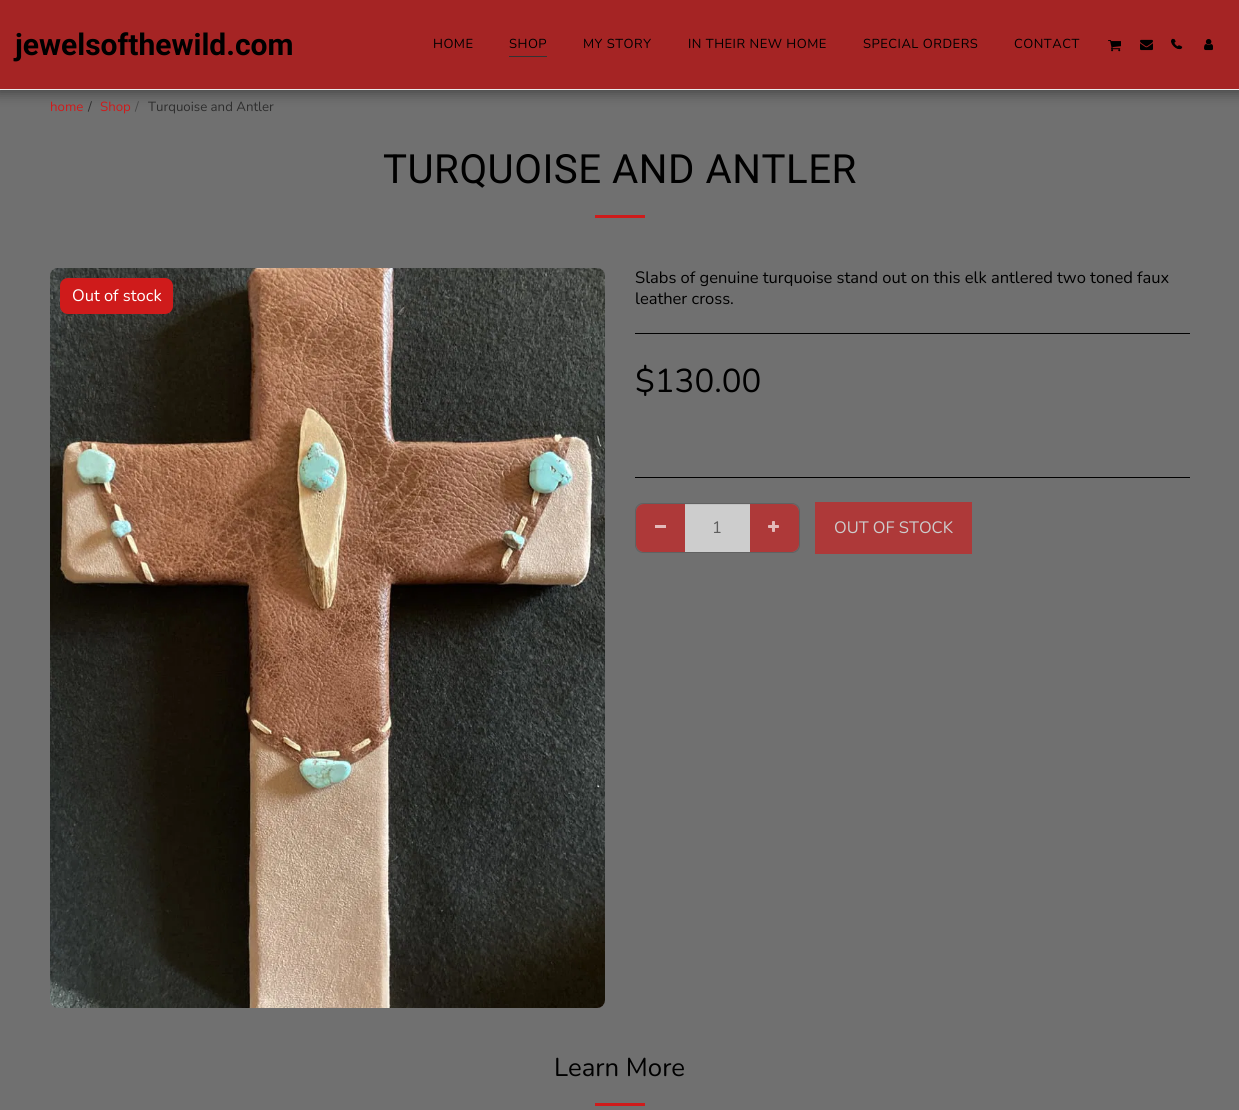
#include <cairo.h>
#include <math.h>
#include <stddef.h>

static cairo_t *c;
static void C(unsigned color){cairo_set_source_rgb(c, (color >> 16) / 255.0, (color >> 8 & 255) / 255.0, (color & 255) / 255.0);}
static void F(const char *family, double size, int italic, int bold){cairo_select_font_face(c, family, italic ? CAIRO_FONT_SLANT_ITALIC : CAIRO_FONT_SLANT_NORMAL,bold ? CAIRO_FONT_WEIGHT_BOLD : CAIRO_FONT_WEIGHT_NORMAL);cairo_set_font_size(c, size);}
static void T(double x, double y, const char *s){cairo_move_to(c, x, y);cairo_show_text(c, s);}
static void L(double x, double y, const char *s, double letter, double word){cairo_move_to(c, x, y);while (*s) {char ch[5] = {0};int n = 0;do ch[n++] = *s++; while ((*s & 0xC0) == 0x80);cairo_show_text(c, ch);cairo_rel_move_to(c, letter + word * (*ch == ' '), 0);}}
static void R(double x, double y, double w, double h){cairo_rectangle(c, x, y, w, h);cairo_fill(c);}
static void Q(double x, double y, double w, double h, double r){cairo_new_sub_path(c);cairo_arc(c, x + w - r, y + h - r, r, 0, M_PI / 2);cairo_arc(c, x + r, y + h - r, r, M_PI / 2, M_PI);cairo_arc(c, x + r, y + r, r, M_PI, 1.5 * M_PI);cairo_arc(c, x + w - r, y + r, r, 1.5 * M_PI, 2 * M_PI);cairo_close_path(c);}
static void S(double x, double y, double w, double h, double r, double blur, double alpha){cairo_push_group_with_content(c, CAIRO_CONTENT_ALPHA);cairo_set_operator(c, CAIRO_OPERATOR_SOURCE);for (int i = 15; i >= -15 && fmin(w, h) + blur * i / 3 > 0; i -= 2) {double e = blur * i / 6;cairo_set_source_rgba(c, 0, 0, 0, alpha * erfc((i - 1) / 8.5) / 2);Q(x - e, y - e, w + 2 * e, h + 2 * e, fmax(0, fmin(r + e + blur * .6, fmin(w, h) / 2 + e)));cairo_fill(c);}cairo_pattern_t *soft = cairo_pop_group(c);cairo_mask(c, soft);cairo_pattern_destroy(soft);}
static void I(const char *path, double x, double y, double w, double h){cairo_surface_t *image = cairo_image_surface_create_from_png(path);cairo_save(c);cairo_set_source_surface(c, image, x, y);cairo_rectangle(c, x, y, w, h);cairo_fill(c);cairo_restore(c);cairo_surface_destroy(image);}
int main(void) {
cairo_surface_t *surface = cairo_image_surface_create(CAIRO_FORMAT_RGB24, 1239, 1110);
c = cairo_create(surface);
cairo_font_options_t *options = cairo_font_options_create();
cairo_font_options_set_hint_metrics(options, CAIRO_HINT_METRICS_OFF);
cairo_font_options_set_hint_style(options, CAIRO_HINT_STYLE_NONE);
cairo_set_font_options(c, options);
cairo_set_miter_limit(c, 4);
C(0x707070);
cairo_paint(c);
C(0x000000);
S(-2,0,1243,94,0,6,.35);
C(0xa52424);
R(0,0,1239,89);
C(0xebebeb);
R(0,89,1239,1);
F("Roboto",30,0,1);
C(0x000000);
T(15,55,"jewelsofthewild.com");
F("Nunito",13,0,0);
L(433,48,"HOME",.5,0);
L(509,48,"SHOP",.5,0);
C(0x333333);
R(509,56,38,1);
C(0x000000);
L(583,48,"MY STORY",.5,0);
L(688,48,"IN THEIR NEW HOME",.5,0);
L(863,48,"SPECIAL ORDERS",.5,0);
L(1014,48,"CONTACT",.5,0);
I("1.png",1108,40,13,12);
I("2.png",1140,39,13,12);
I("3.png",1172,39,11,11);
I("4.png",1171,38,11,11);
I("5.png",1204,39,9,12);
F("Nunito",13.25,0,0);
C(0xcf1b1b);
T(50,111,"home");
C(0x2d2d2d);
T(88,111,"/");
C(0xcf1b1b);
T(100,111,"Shop");
C(0x484848);
T(135,111,"/");
C(0x2d2d2d);
T(148,111,"Turquoise and Antler");
F("Roboto",40.25,0,0);
C(0x000000);
L(383,183,"TURQUOISE AND ANTLER",.5,0);
C(0xcf1b1b);
R(595,215,50,3);
I("6.png",50,268,555,740);
Q(60,278,113,36,8);
cairo_fill(c);
F("Nunito",16.5,0,0);
C(0xffffff);
T(72,301,"Out of stock");
C(0x000000);
T(635,283,"Slabs of genuine turquoise stand out on this elk antlered two toned faux");
T(635,304,"leather cross.");
R(635,333,555,1);
F("Nunito",33,0,0);
T(635,392,"$130.00");
R(635,477,555,1);
Q(635.5,503.5,164,49,7.5);
C(0x616161);
cairo_set_line_width(c,1);
cairo_stroke(c);
C(0xae3939);
cairo_new_path(c);
cairo_move_to(c,644,504);
cairo_line_to(c,686,504);
cairo_line_to(c,686,552);
cairo_line_to(c,644,552);
cairo_curve_to(c,639.5,552,636,548.5,636,544);
cairo_line_to(c,636,512);
cairo_curve_to(c,636,507.5,639.5,504,644,504);
cairo_close_path(c);
cairo_fill(c);
C(0xe3baba);
R(655,525,11,3);
C(0xae3939);
cairo_new_path(c);
cairo_move_to(c,749,504);
cairo_line_to(c,791,504);
cairo_curve_to(c,795.5,504,799,507.5,799,512);
cairo_line_to(c,799,544);
cairo_curve_to(c,799,548.5,795.5,552,791,552);
cairo_line_to(c,749,552);
cairo_close_path(c);
cairo_fill(c);
C(0xcdcdcd);
R(685,505,65,47);
C(0xc1c1c1);
R(685,504,65,1);
F("Nunito",16.5,0,0);
C(0x5e5e5e);
T(712,533,"1");
I("7.png",768,521,11,11);
C(0xae3939);
R(815,502,157,52);
C(0xcdcdcd);
T(834,533,"OUT OF STOCK");
F("Nunito",25.75,0,0);
C(0x000000);
T(554,1076,"Learn More");
C(0xcf1b1b);
R(595,1103,50,3);
cairo_surface_write_to_png(surface, "o.png");
cairo_font_options_destroy(options);
cairo_destroy(c);
cairo_surface_destroy(surface);
return 0;
}
